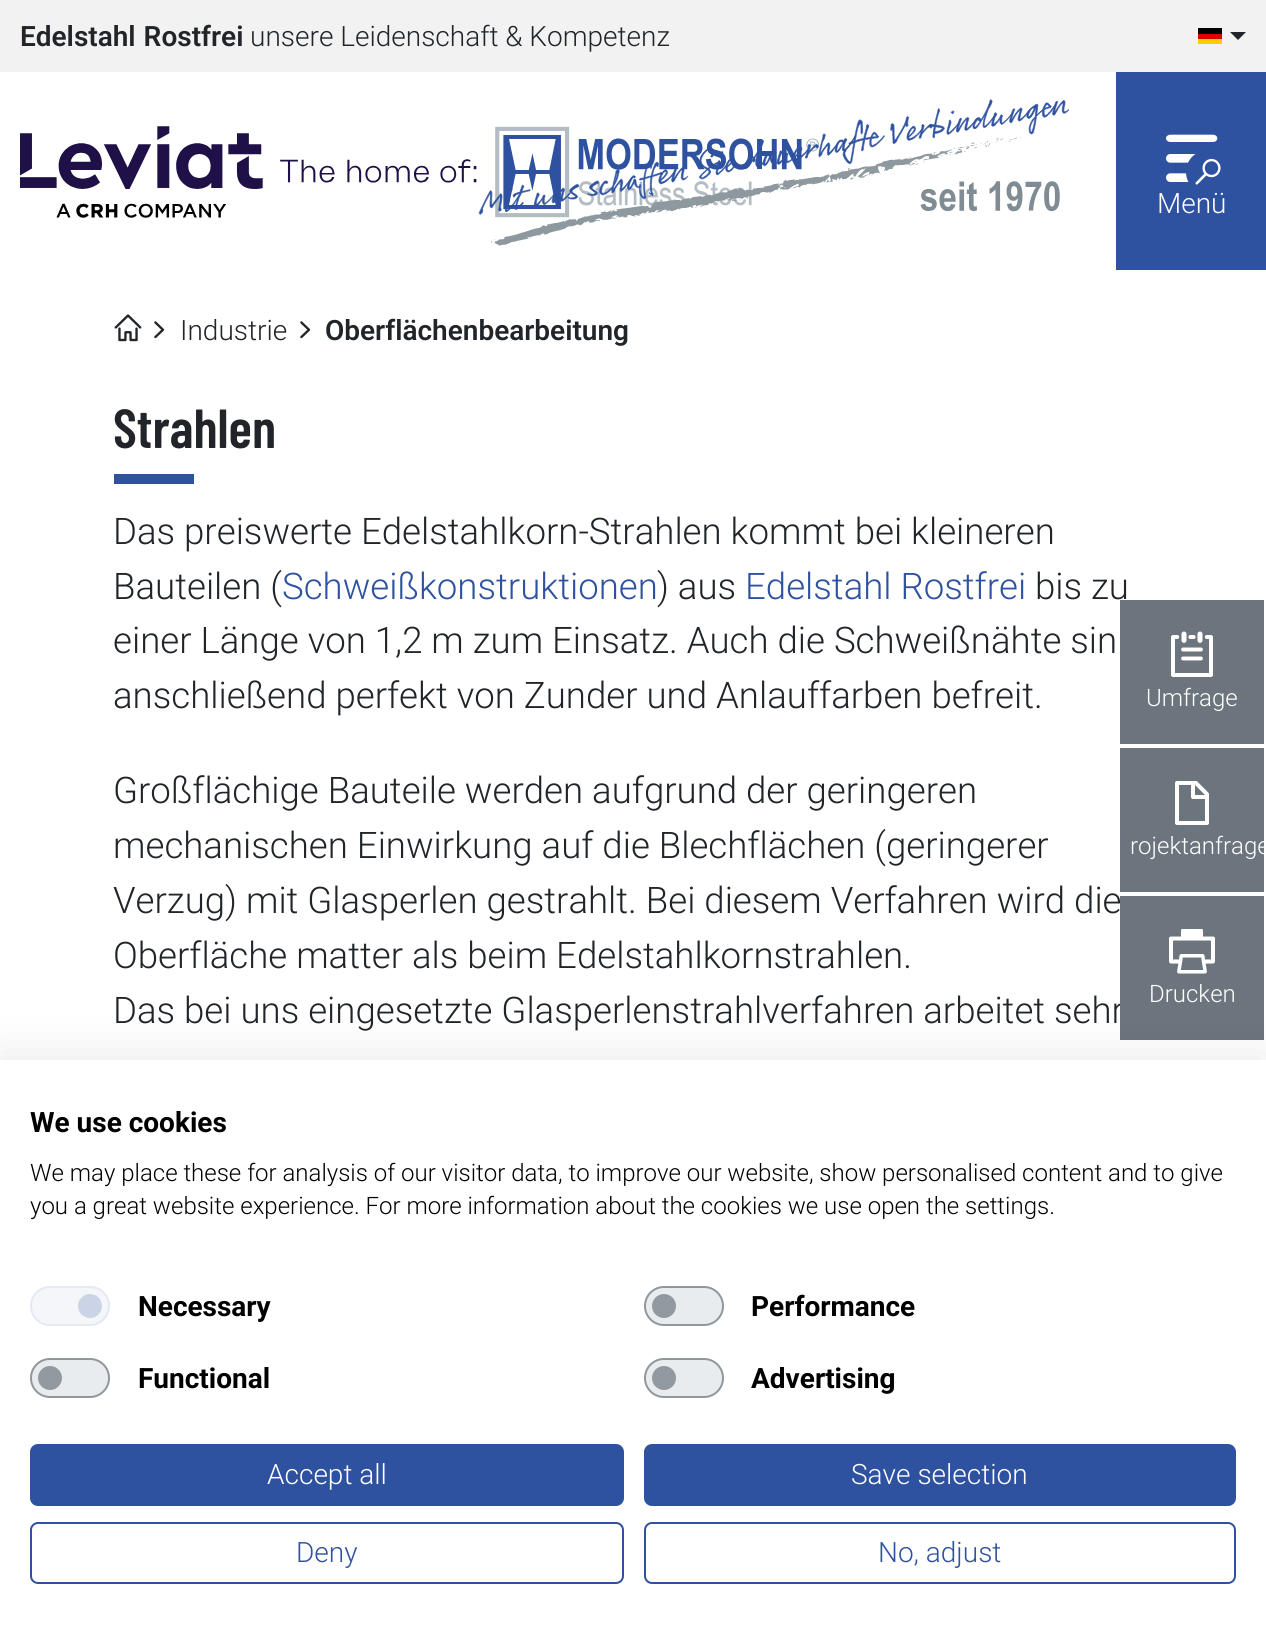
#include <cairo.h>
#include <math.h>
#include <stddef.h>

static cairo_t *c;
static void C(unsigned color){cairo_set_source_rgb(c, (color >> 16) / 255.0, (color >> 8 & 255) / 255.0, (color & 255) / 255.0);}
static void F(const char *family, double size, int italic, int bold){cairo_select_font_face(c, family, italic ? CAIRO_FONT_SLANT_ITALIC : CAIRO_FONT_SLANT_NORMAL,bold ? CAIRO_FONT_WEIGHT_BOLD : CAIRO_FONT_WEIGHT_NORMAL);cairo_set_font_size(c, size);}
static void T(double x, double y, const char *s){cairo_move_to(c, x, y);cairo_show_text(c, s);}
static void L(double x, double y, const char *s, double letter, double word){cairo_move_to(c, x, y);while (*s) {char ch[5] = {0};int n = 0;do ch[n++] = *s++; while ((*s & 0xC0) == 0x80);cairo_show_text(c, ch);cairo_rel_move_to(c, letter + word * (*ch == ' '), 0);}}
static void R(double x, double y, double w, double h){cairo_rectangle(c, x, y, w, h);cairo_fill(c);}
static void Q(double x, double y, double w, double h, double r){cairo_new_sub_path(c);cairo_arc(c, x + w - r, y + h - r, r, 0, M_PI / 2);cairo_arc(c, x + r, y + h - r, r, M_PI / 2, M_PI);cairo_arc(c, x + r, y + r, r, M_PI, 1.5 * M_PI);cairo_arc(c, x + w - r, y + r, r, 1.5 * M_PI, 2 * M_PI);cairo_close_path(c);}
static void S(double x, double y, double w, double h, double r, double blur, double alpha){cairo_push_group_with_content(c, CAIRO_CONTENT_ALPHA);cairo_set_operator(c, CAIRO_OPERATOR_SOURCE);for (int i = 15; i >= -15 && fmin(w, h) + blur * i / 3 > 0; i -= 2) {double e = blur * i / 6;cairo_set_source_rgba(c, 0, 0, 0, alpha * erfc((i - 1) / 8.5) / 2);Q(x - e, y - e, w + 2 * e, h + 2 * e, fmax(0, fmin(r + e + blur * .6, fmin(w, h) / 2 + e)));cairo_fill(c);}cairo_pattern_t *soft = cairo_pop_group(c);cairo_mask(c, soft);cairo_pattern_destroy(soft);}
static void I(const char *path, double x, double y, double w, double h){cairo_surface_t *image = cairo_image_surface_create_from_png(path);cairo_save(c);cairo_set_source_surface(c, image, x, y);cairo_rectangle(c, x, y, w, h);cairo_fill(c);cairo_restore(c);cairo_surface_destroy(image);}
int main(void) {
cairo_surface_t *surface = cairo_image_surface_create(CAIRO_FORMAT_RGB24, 1266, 1638);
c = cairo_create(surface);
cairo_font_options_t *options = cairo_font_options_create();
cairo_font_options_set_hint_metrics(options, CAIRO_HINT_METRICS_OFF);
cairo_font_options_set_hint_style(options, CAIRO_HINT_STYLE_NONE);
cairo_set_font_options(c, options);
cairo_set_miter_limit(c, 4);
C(0xffffff);
cairo_paint(c);
C(0xf2f2f2);
R(0,0,1266,72);
F("Roboto SemiBold",28,0,0);
C(0x212529);
L(20,46,"Edelstahl Rostfrei",0,1);
F("Roboto Light",28,0,0);
T(250,46,"unsere Leidenschaft & Kompetenz");
C(0x000000);
R(1198,28,24,6);
C(0xdd0000);
R(1198,34,24,5);
C(0xffce00);
R(1198,39,24,5);
C(0x212529);
cairo_new_path(c);
cairo_move_to(c,1230,32);
cairo_line_to(c,1246,32);
cairo_line_to(c,1238,40);
cairo_close_path(c);
cairo_fill(c);
I("2.png",20,126,800,92);
I("1.png",478,99,592,147);
C(0x2f52a0);
R(1116,72,150,198);
I("3.png",1166,134,52,48);
C(0xffffff);
T(1157,213,"Menü");
C(0x2f52a0);
cairo_new_path(c);
cairo_arc(c,1208,172,22,0,2 * M_PI);
cairo_fill(c);
I("4.png",1195,158,26,27);
I("5.png",114,314,28,28);
I("6.png",154,321,11,18);
C(0x212529);
T(180,340,"Industrie");
I("6.png",300,321,11,18);
F("Roboto SemiBold",28,0,0);
T(325,340,"Oberflächenbearbeitung");
F("Barlow Condensed SemiBold",55,0,0);
T(113,448,"Strahlen");
C(0x2f52a0);
R(114,474,80,10);
F("Roboto Light",36.6,0,0);
C(0x212529);
T(113,544,"Das preiswerte Edelstahlkorn-Strahlen kommt bei kleineren");
T(113,599,"Bauteilen (");
C(0x2f52a0);
T(282,599,"Schweißkonstruktionen");
C(0x212529);
T(657,599,") aus");
C(0x2f52a0);
T(745,599,"Edelstahl Rostfrei");
C(0x212529);
T(1035,599,"bis zu");
T(113,653,"einer Länge von 1,2 m zum Einsatz. Auch die Schweißnähte sin");
T(113,708,"anschließend perfekt von Zunder und Anlauffarben befreit.");
T(113,803,"Großflächige Bauteile werden aufgrund der geringeren");
T(113,858,"mechanischen Einwirkung auf die Blechflächen (geringerer");
T(113,913,"Verzug) mit Glasperlen gestrahlt. Bei diesem Verfahren wird die");
T(113,968,"Oberfläche matter als beim Edelstahlkornstrahlen.");
T(113,1023,"Das bei uns eingesetzte Glasperlenstrahlverfahren arbeitet sehr");
C(0x6c757d);
R(1120,600,144,144);
I("7.png",1171,631,42,46);
F("Roboto Light",24,0,0);
C(0xffffff);
T(1146,706,"Umfrage");
C(0x6c757d);
R(1120,748,144,144);
I("8.png",1175,781,34,44);
C(0xffffff);
T(1130,854,"rojektanfrage");
C(0x6c757d);
R(1120,896,144,144);
I("9.png",1169,929,46,45);
C(0xffffff);
T(1149,1002,"Drucken");
C(0x000000);
S(0,1060,1266,578,0,24,.1);
C(0xffffff);
R(0,1060,1266,578);
F("Roboto",28,0,1);
C(0x000000);
T(30,1132,"We use cookies");
F("Roboto Light",24,0,0);
T(30,1181,"We may place these for analysis of our visitor data, to improve our website, show personalised content and to give");
T(30,1214,"you a great website experience. For more information about the cookies we use open the settings.");
C(0xf5f6fa);
Q(30,1286,80,40,20);
cairo_fill(c);
C(0xcbd4e7);
cairo_arc(c,90,1306,12,0,2 * M_PI);
cairo_fill(c);
Q(31,1287,78,38,19);
C(0xe5e9f3);
cairo_stroke(c);
F("Roboto",28,0,1);
C(0x000000);
T(138,1316,"Necessary");
C(0xe9ecef);
Q(644,1286,80,40,20);
cairo_fill(c);
C(0x92999f);
cairo_arc(c,664,1306,12,0,2 * M_PI);
cairo_fill(c);
Q(645,1287,78,38,19);
cairo_set_source_rgba(c,0.424,0.459,0.49,0.7);
cairo_stroke(c);
C(0x000000);
T(751,1316,"Performance");
C(0xe9ecef);
Q(30,1358,80,40,20);
cairo_fill(c);
C(0x92999f);
cairo_arc(c,50,1378,12,0,2 * M_PI);
cairo_fill(c);
Q(31,1359,78,38,19);
cairo_set_source_rgba(c,0.424,0.459,0.49,0.7);
cairo_stroke(c);
C(0x000000);
T(138,1388,"Functional");
C(0xe9ecef);
Q(644,1358,80,40,20);
cairo_fill(c);
C(0x92999f);
cairo_arc(c,664,1378,12,0,2 * M_PI);
cairo_fill(c);
Q(645,1359,78,38,19);
cairo_set_source_rgba(c,0.424,0.459,0.49,0.7);
cairo_stroke(c);
C(0x000000);
T(751,1388,"Advertising");
C(0x2f52a0);
Q(31,1445,592,60,7);
cairo_fill_preserve(c);
cairo_stroke(c);
F("Roboto Light",28,0,0);
C(0xffffff);
T(267,1484,"Accept all");
C(0x2f52a0);
Q(645,1445,590,60,7);
cairo_fill_preserve(c);
cairo_stroke(c);
C(0xffffff);
T(851,1484,"Save selection");
Q(31,1523,592,60,7);
C(0x2f52a0);
cairo_stroke(c);
T(296,1562,"Deny");
Q(645,1523,590,60,7);
cairo_stroke(c);
T(878,1562,"No, adjust");
cairo_surface_write_to_png(surface, "o.png");
cairo_font_options_destroy(options);
cairo_destroy(c);
cairo_surface_destroy(surface);
return 0;
}
